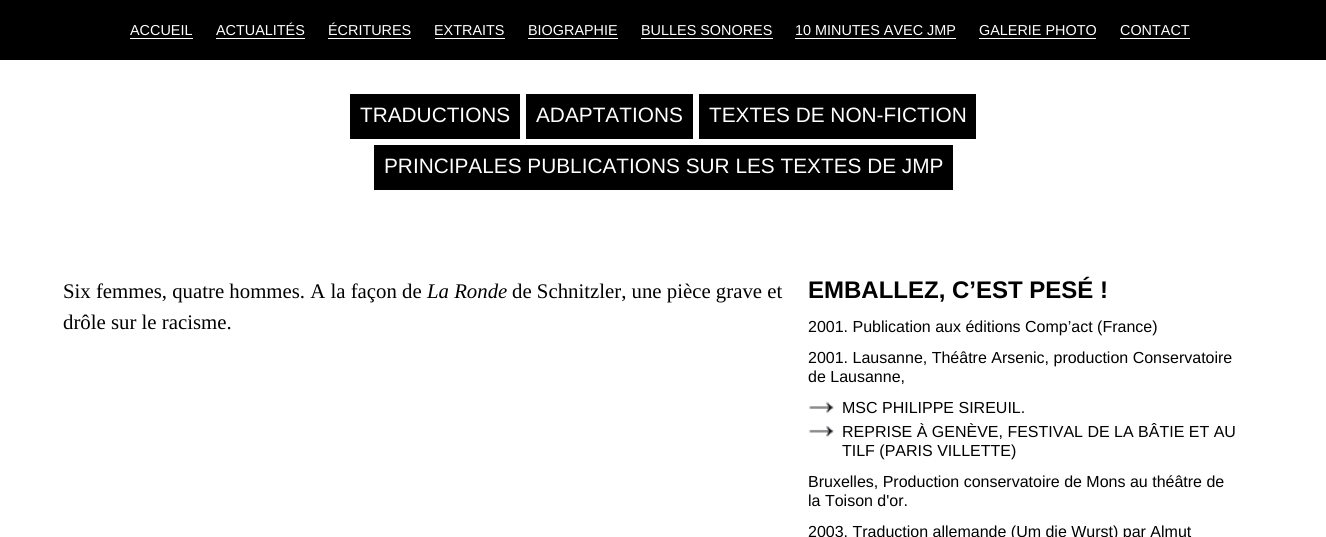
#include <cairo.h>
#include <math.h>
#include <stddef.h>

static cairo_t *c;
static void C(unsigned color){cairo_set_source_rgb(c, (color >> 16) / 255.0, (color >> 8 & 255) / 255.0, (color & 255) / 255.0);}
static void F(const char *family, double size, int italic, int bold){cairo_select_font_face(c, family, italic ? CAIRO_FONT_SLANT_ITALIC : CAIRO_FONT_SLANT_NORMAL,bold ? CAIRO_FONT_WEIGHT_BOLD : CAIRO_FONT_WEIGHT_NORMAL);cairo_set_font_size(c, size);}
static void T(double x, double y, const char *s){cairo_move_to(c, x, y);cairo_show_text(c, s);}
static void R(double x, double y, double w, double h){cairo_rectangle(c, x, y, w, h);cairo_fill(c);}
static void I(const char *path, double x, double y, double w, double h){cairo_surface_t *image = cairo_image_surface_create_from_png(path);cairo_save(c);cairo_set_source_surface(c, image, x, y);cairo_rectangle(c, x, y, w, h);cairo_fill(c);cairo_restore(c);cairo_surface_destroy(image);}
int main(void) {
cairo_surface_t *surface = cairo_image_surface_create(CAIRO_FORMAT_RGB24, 1326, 537);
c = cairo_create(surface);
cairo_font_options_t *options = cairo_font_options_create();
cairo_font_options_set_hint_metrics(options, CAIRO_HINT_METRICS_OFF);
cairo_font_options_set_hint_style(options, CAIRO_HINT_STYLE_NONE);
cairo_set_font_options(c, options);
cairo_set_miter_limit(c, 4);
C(0xffffff);
cairo_paint(c);
C(0x000000);
R(0,0,1326,60);
F("Liberation Sans",14.4,0,0);
C(0xffffff);
T(130,35,"ACCUEIL");
R(130,38,63,1);
T(216,35,"ACTUALITÉS");
R(216,38,89,1);
T(328,35,"ÉCRITURES");
R(328,38,83,1);
T(434,35,"EXTRAITS");
R(435,38,70,1);
T(528,35,"BIOGRAPHIE");
R(528,38,90,1);
T(641,35,"BULLES SONORES");
R(641,38,132,1);
T(795,35,"10 MINUTES AVEC JMP");
R(795,38,161,1);
T(979,35,"GALERIE PHOTO");
R(979,38,117,1);
T(1120,35,"CONTACT");
R(1120,38,70,1);
C(0x000000);
R(350,94,170,45);
F("Liberation Sans",20.8,0,0);
C(0xffffff);
T(360,122,"TRADUCTIONS");
C(0x000000);
R(526,94,167,45);
C(0xffffff);
T(536,122,"ADAPTATIONS");
C(0x000000);
R(699,94,277,45);
C(0xffffff);
T(709,122,"TEXTES DE NON-FICTION");
C(0x000000);
R(374,145,579,45);
C(0xffffff);
T(384,173,"PRINCIPALES PUBLICATIONS SUR LES TEXTES DE JMP");
F("Liberation Serif",20.8,0,0);
C(0x000000);
T(63,298,"Six femmes, quatre hommes. A la façon de");
F("Liberation Serif",20.8,1,0);
T(427,298,"La Ronde");
F("Liberation Serif",20.8,0,0);
T(512,298,"de Schnitzler, une pièce grave et");
T(63,329,"drôle sur le racisme.");
F("Liberation Sans",24,0,1);
T(808,298,"EMBALLEZ, C’EST PESÉ !");
F("Liberation Sans",16,0,0);
T(808,332,"2001. Publication aux éditions Comp’act (France)");
T(808,363,"2001. Lausanne, Théâtre Arsenic, production Conservatoire");
T(808,382,"de Lausanne,");
I("1.png",808,402,26,11);
T(842,413,"MSC PHILIPPE SIREUIL.");
I("2.png",808,426,26,11);
T(842,437,"REPRISE À GENÈVE, FESTIVAL DE LA BÂTIE ET AU");
T(842,456,"TILF (PARIS VILLETTE)");
T(808,487,"Bruxelles, Production conservatoire de Mons au théâtre de");
T(808,506,"la Toison d'or.");
T(808,537,"2003. Traduction allemande (Um die Wurst) par Almut");
cairo_surface_write_to_png(surface, "o.png");
cairo_font_options_destroy(options);
cairo_destroy(c);
cairo_surface_destroy(surface);
return 0;
}
